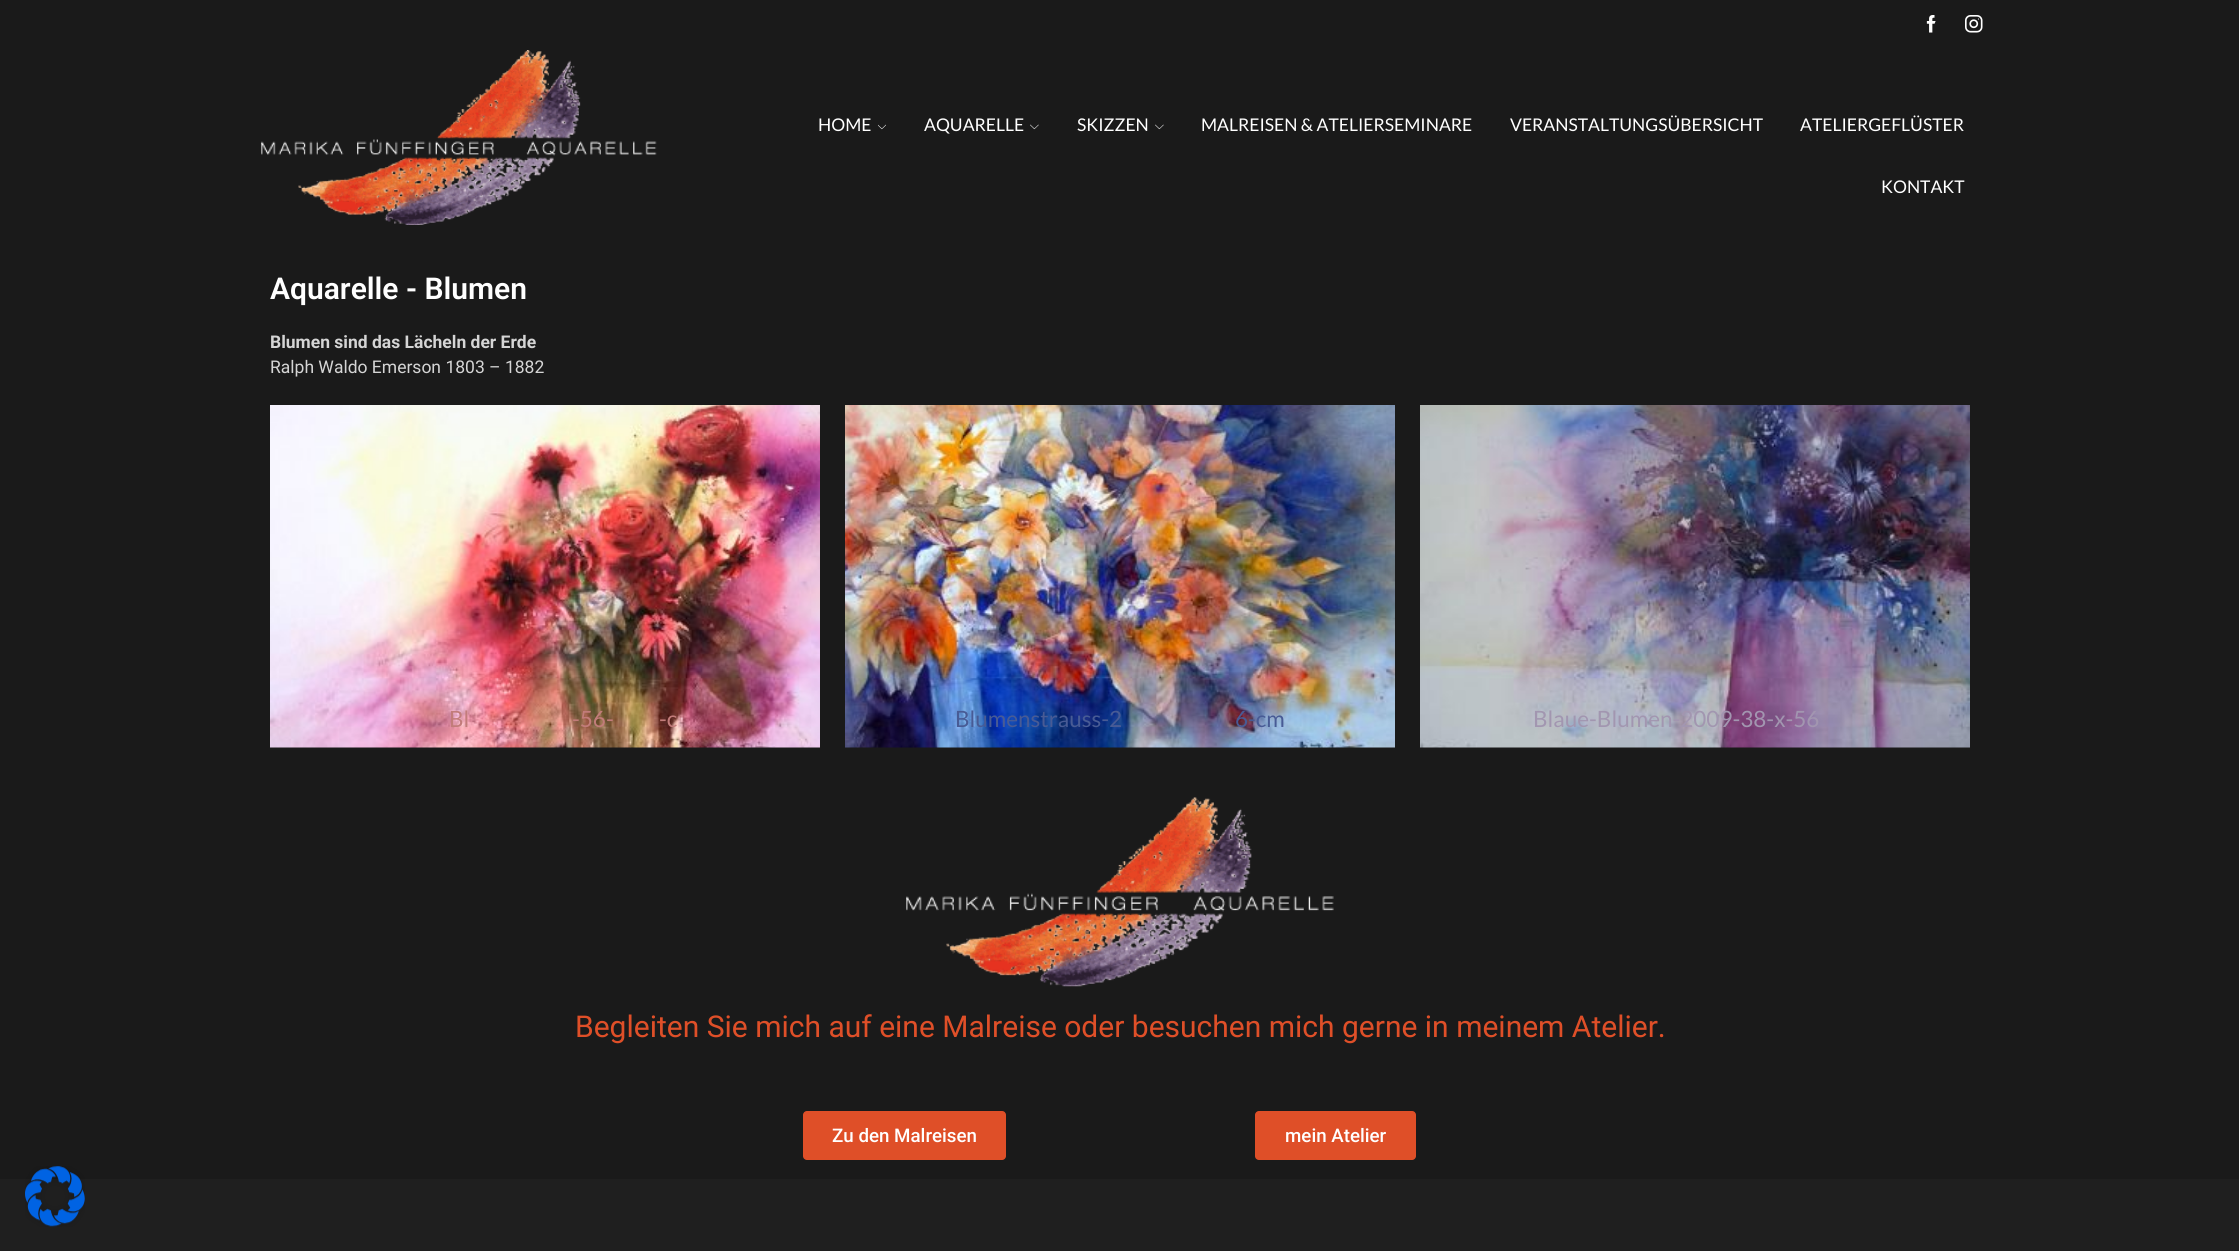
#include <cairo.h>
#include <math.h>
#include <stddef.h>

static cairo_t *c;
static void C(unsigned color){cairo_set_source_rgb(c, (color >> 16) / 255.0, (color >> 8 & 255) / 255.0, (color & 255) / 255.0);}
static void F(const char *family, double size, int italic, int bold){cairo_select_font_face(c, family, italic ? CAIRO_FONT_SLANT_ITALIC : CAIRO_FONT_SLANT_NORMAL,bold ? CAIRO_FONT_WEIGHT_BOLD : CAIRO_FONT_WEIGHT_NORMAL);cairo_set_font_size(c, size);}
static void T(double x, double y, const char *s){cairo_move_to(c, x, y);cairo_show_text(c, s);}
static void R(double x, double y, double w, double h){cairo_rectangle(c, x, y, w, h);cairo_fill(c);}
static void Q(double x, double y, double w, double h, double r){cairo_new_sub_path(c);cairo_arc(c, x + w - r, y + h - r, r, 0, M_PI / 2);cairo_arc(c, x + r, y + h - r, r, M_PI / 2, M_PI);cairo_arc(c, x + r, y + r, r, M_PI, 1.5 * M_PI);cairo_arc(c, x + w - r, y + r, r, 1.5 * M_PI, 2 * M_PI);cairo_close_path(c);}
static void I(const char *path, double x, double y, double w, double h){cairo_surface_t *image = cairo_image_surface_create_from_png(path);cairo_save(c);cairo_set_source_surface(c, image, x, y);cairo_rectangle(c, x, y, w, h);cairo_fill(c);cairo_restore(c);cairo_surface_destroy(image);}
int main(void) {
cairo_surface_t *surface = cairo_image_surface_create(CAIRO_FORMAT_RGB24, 2239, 1251);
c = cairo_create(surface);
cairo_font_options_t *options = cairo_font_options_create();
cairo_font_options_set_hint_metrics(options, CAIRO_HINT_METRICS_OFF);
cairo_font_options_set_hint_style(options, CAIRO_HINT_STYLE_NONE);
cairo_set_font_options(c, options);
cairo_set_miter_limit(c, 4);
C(0x1f1f1f);
cairo_paint(c);
C(0x1a1a1a);
R(0,0,2239,1179);
I("1.png",1926,15,10,18);
I("2.png",1965,15,18,18);
I("3.png",261,50,396,175);
F("Lato",17.5,0,0);
C(0xffffff);
T(818,131,"HOME");
I("4.png",878,124,8,6);
T(924,131,"AQUARELLE");
I("5.png",1030,124,9,6);
T(1077,131,"SKIZZEN");
I("5.png",1155,124,9,6);
T(1201,131,"MALREISEN & ATELIERSEMINARE");
T(1510,131,"VERANSTALTUNGSÜBERSICHT");
T(1800,131,"ATELIERGEFLÜSTER");
T(1881,193,"KONTAKT");
F("Roboto SemiBold",30,0,0);
T(270,299,"Aquarelle - Blumen");
F("Roboto",17.5,0,1);
C(0xd5d5d5);
T(270,348,"Blumen sind das Lächeln der Erde");
F("Roboto",17.5,0,0);
T(270,373,"Ralph Waldo Emerson 1803 – 1882");
I("6.png",270,405,550,343);
F("Lato",22.5,0,0);
C(0xc27c7a);
T(449,727,"Bl");
T(572,727,"-56-");
T(659,727,"-c");
I("7.png",845,405,550,343);
C(0x485b95);
T(955,727,"Blumenstrauss-2");
T(1235,727,"6-cm");
I("8.png",1420,405,550,343);
C(0xa296b0);
T(1533,727,"Blaue-Blumen-2009-38-x-56");
I("9.png",906,797,428,190);
F("Roboto",30,0,0);
C(0xdf4f28);
T(575,1037,"Begleiten Sie mich auf eine Malreise oder besuchen mich gerne in meinem Atelier.");
Q(803,1111,203,49,4);
cairo_fill(c);
F("Roboto Medium",18.75,0,0);
C(0xffffff);
T(832,1142,"Zu den Malreisen");
C(0xdf4f28);
Q(1255,1111,161,49,4);
cairo_fill(c);
C(0xffffff);
T(1285,1142,"mein Atelier");
I("10.png",25,1166,60,61);
cairo_surface_write_to_png(surface, "o.png");
cairo_font_options_destroy(options);
cairo_destroy(c);
cairo_surface_destroy(surface);
return 0;
}
